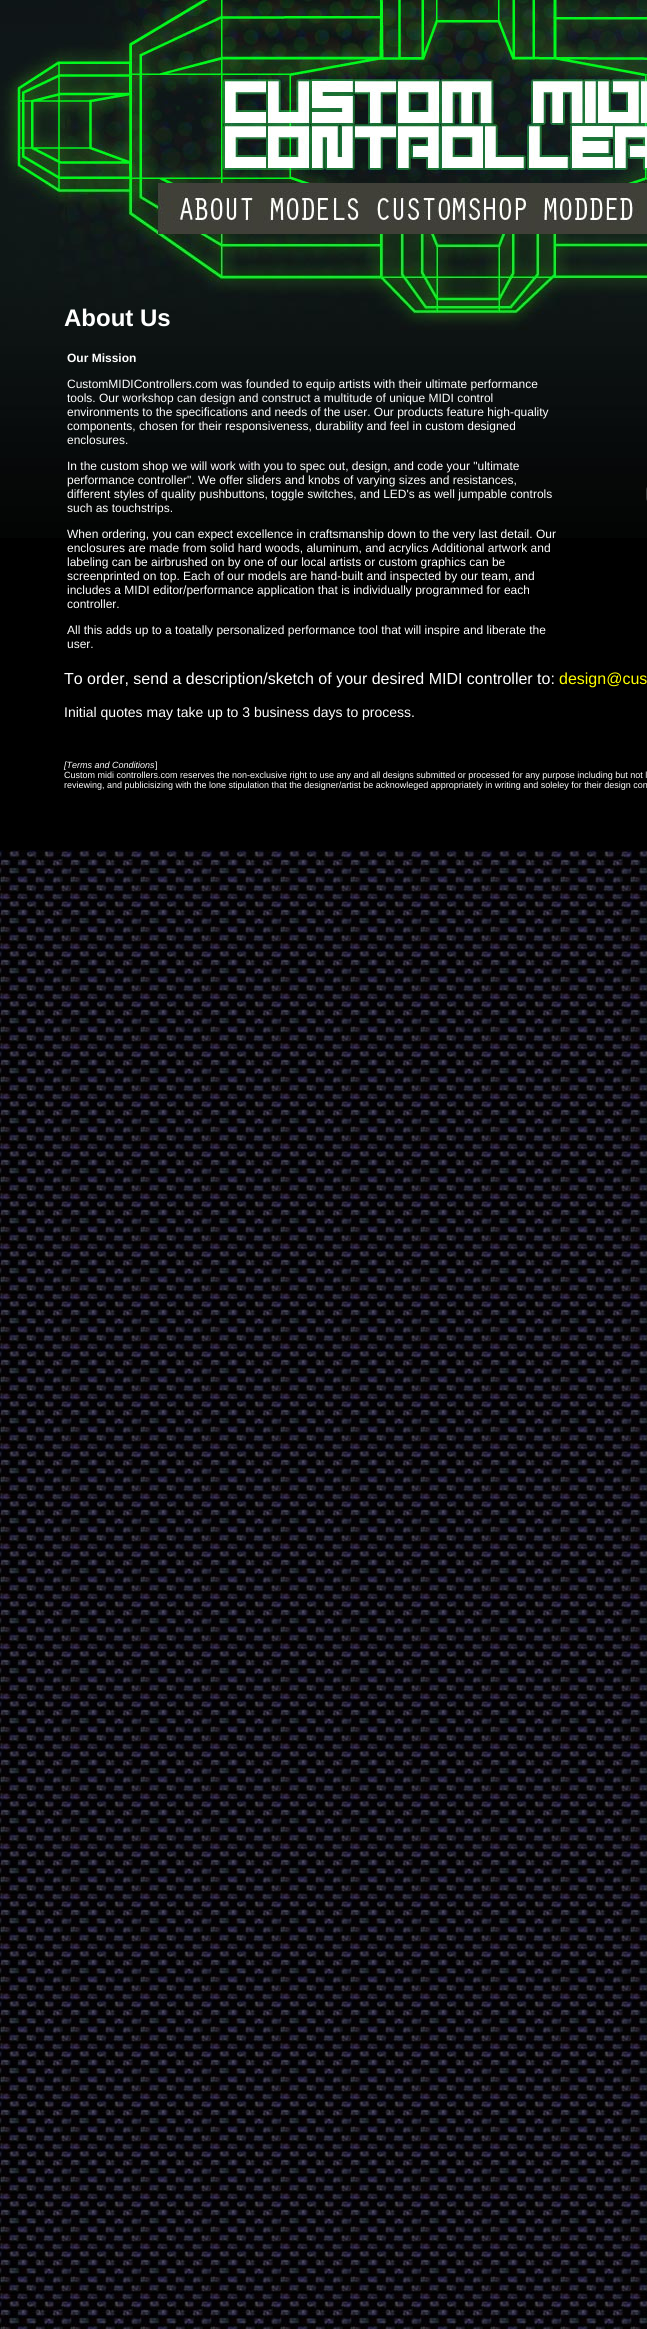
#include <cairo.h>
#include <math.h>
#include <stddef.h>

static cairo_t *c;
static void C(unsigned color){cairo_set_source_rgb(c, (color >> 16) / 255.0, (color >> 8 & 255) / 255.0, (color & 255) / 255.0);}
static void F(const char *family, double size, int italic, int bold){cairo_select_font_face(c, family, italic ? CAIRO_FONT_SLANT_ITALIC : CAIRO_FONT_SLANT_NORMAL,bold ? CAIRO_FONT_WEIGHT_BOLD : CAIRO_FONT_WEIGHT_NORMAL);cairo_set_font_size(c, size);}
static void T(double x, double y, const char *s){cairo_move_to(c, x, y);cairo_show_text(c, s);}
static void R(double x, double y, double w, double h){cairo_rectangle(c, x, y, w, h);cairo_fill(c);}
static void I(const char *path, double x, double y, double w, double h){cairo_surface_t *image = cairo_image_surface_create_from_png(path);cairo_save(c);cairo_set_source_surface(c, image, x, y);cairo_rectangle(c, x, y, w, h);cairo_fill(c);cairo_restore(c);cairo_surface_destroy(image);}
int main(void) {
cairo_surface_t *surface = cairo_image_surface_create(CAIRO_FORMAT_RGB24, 647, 2329);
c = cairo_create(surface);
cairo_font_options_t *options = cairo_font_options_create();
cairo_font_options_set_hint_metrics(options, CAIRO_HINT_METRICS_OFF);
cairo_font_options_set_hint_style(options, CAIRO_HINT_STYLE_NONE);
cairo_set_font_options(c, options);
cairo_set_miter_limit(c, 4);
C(0xffffff);
cairo_paint(c);
I("1.png",0,850,647,1479);
C(0x000000);
R(0,538,647,312);
I("2.png",0,0,647,183);
I("3.png",0,183,157,51);
I("4.png",157,183,106,51);
I("5.png",263,183,106,51);
I("6.png",369,183,166,51);
I("7.png",535,183,106,51);
I("8.png",641,183,6,51);
I("9.png",0,234,647,304);
F("Liberation Sans",24,0,1);
C(0xffffff);
T(64,326,"About Us");
F("Liberation Sans",12,0,1);
T(67,362,"Our Mission");
F("Liberation Sans",12,0,0);
T(67,388,"CustomMIDIControllers.com was founded to equip artists with their ultimate performance");
T(67,402,"tools. Our workshop can design and construct a multitude of unique MIDI control");
T(67,416,"environments to the specifications and needs of the user. Our products feature high-quality");
T(67,430,"components, chosen for their responsiveness, durability and feel in custom designed");
T(67,444,"enclosures.");
T(67,470,"In the custom shop we will work with you to spec out, design, and code your \"ultimate");
T(67,484,"performance controller\". We offer sliders and knobs of varying sizes and resistances,");
T(67,498,"different styles of quality pushbuttons, toggle switches, and LED's as well jumpable controls");
T(67,512,"such as touchstrips.");
T(67,538,"When ordering, you can expect excellence in craftsmanship down to the very last detail. Our");
T(67,552,"enclosures are made from solid hard woods, aluminum, and acrylics Additional artwork and");
T(67,566,"labeling can be airbrushed on by one of our local artists or custom graphics can be");
T(67,580,"screenprinted on top. Each of our models are hand-built and inspected by our team, and");
T(67,594,"includes a MIDI editor/performance application that is individually programmed for each");
T(67,608,"controller.");
T(67,634,"All this adds up to a toatally personalized performance tool that will inspire and liberate the");
T(67,648,"user.");
I("10.png",646,487,1,14);
F("Liberation Sans",16,0,0);
T(64,684,"To order, send a description/sketch of your desired MIDI controller to:");
C(0xffff00);
T(559,684,"design@cus");
F("Liberation Sans",14,0,0);
C(0xffffff);
T(64,717,"Initial quotes may take up to 3 business days to process.");
F("Liberation Sans",9,1,0);
T(64,768,"[Terms and Conditions");
F("Liberation Sans",9,0,0);
T(155,768,"]");
T(64,778,"Custom midi controllers.com reserves the non-exclusive right to use any and all designs submitted or processed for any purpose including but not l");
T(64,788,"reviewing, and publicisizing with the lone stipulation that the designer/artist be acknowleged appropriately in writing and soleley for their design con");
cairo_surface_write_to_png(surface, "o.png");
cairo_font_options_destroy(options);
cairo_destroy(c);
cairo_surface_destroy(surface);
return 0;
}
